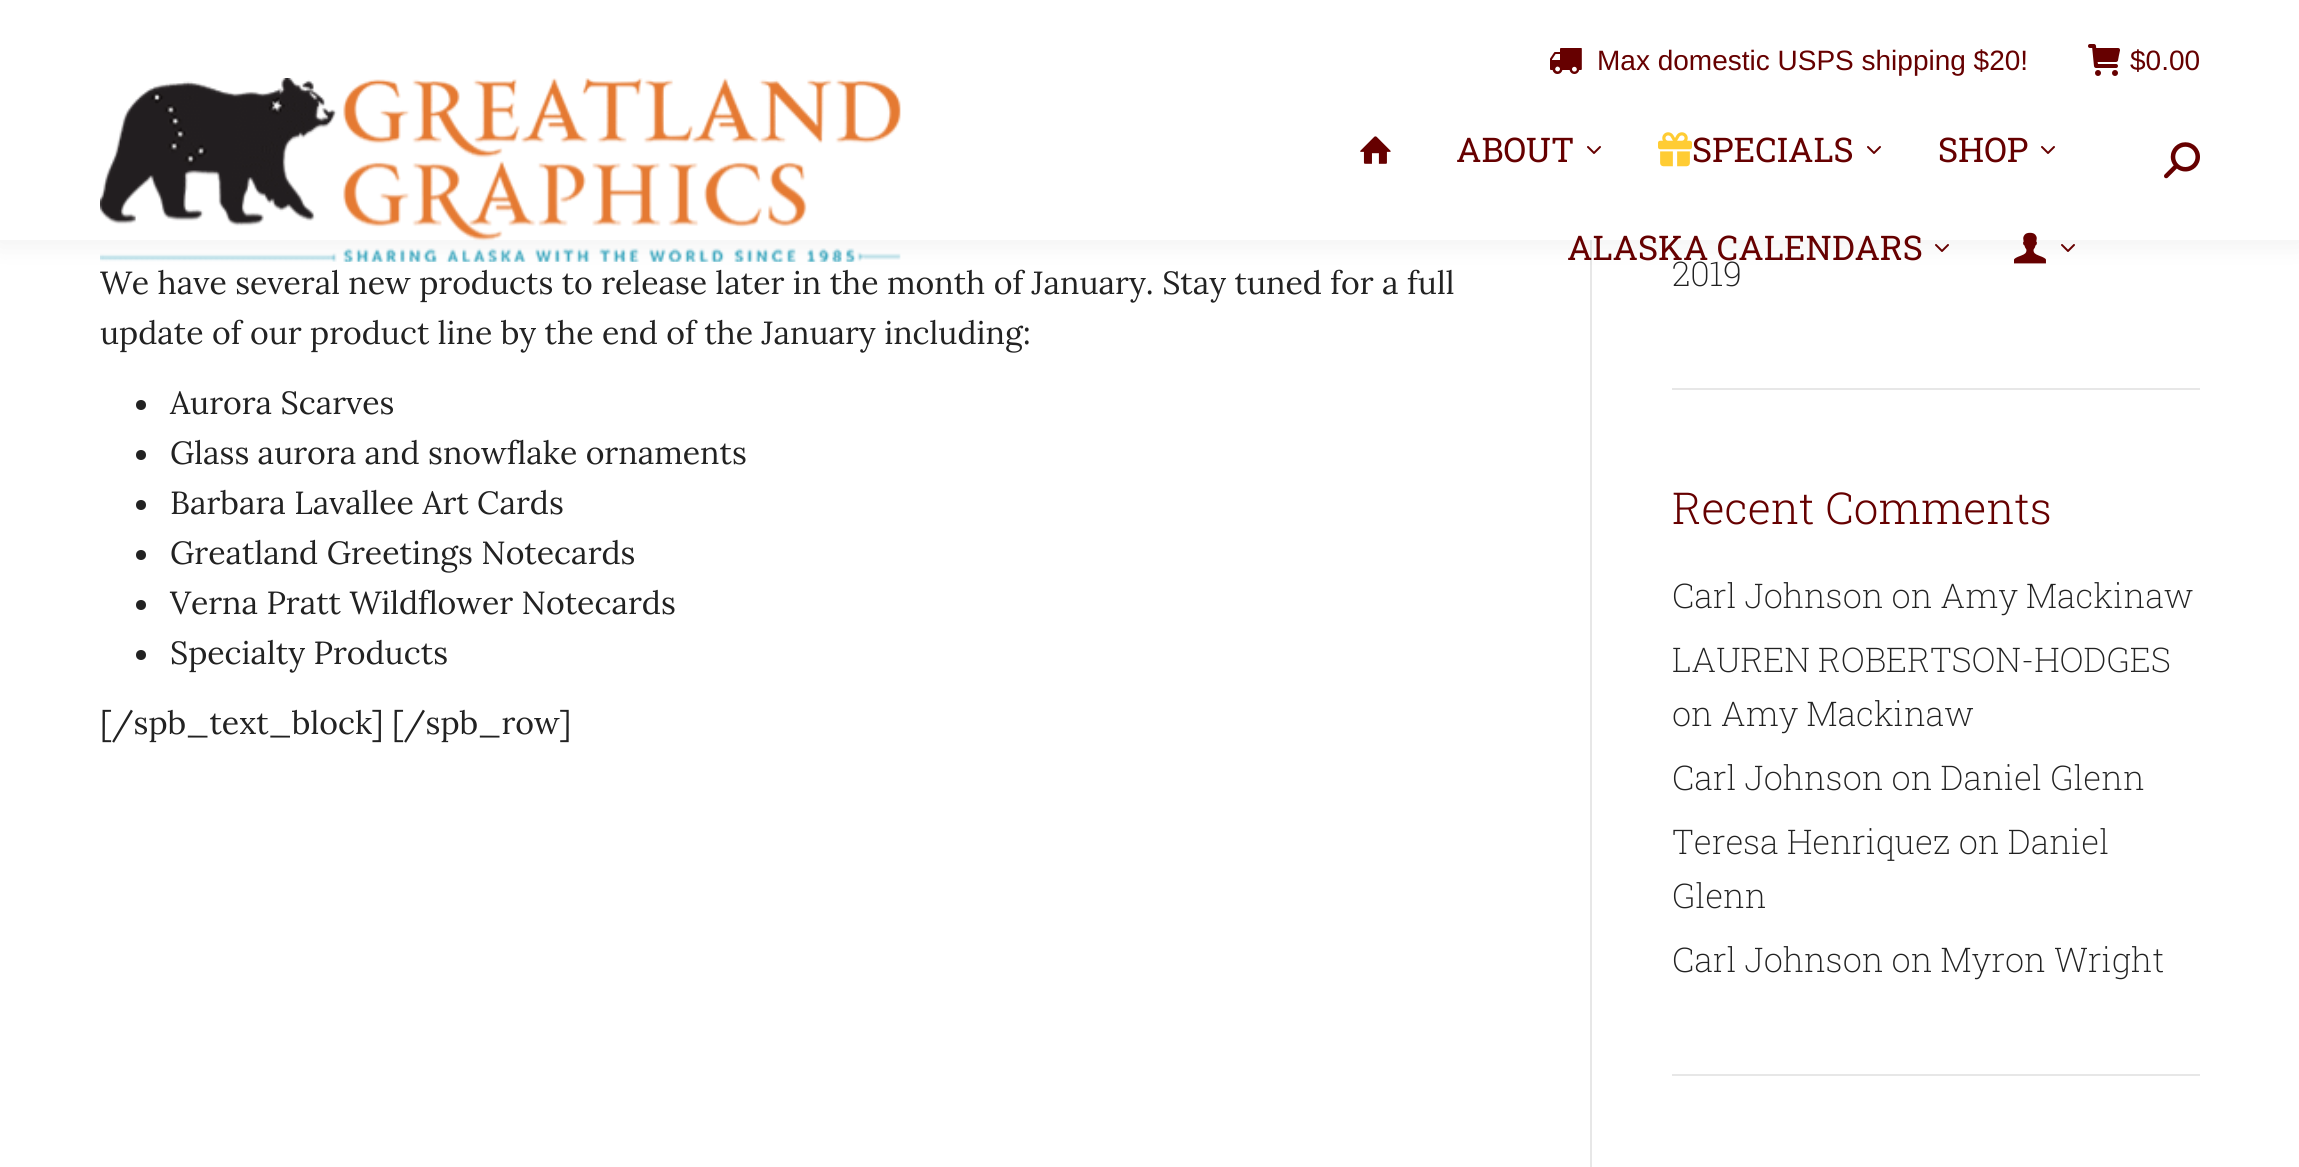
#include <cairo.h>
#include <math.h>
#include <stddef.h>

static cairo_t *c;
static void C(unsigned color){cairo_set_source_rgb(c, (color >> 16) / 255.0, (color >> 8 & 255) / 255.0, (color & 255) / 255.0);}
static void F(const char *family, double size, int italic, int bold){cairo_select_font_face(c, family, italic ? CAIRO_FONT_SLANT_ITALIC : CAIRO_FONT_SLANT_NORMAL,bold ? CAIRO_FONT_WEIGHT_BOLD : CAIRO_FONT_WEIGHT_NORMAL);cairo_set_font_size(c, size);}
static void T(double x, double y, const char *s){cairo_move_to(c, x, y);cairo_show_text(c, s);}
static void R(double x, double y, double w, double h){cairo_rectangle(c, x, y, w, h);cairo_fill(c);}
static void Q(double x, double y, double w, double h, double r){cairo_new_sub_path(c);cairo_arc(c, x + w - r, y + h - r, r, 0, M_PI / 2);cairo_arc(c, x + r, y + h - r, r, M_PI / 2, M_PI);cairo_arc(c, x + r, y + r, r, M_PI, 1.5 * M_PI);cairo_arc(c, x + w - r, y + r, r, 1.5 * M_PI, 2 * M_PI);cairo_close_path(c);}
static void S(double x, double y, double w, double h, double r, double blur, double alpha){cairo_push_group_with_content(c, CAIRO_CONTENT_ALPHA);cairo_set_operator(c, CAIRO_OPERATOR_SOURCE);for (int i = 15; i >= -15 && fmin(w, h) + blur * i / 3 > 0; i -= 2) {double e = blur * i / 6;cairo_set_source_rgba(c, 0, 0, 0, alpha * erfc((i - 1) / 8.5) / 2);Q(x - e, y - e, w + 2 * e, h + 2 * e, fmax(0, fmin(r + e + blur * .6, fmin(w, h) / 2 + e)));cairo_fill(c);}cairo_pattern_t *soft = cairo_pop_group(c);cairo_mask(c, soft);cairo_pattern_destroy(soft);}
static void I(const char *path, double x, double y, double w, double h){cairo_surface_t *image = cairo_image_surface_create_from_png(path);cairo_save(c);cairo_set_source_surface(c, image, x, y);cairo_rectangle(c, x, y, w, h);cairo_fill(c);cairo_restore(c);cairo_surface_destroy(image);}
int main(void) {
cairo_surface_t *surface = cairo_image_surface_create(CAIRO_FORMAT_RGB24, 2299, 1167);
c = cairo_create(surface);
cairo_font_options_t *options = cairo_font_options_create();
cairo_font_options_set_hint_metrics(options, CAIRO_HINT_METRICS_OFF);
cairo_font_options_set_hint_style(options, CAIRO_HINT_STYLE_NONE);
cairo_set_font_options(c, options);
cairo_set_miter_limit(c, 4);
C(0xffffff);
cairo_paint(c);
C(0xe7e7e7);
R(1590,240,2,927);
C(0x000000);
S(-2,-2,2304,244,0,15,.07);
C(0xffffff);
R(0,0,2299,240);
I("1.png",1550,48,32,26);
F("Liberation Sans",28,0,0);
C(0x660000);
T(1597,70,"Max domestic USPS shipping $20!");
I("2.png",2088,44,32,32);
T(2130,70,"$0.00");
I("3.png",100,78,801,184);
I("4.png",1360,136,31,28);
F("Roboto Slab",34,0,0);
T(1456,162,"ABOUT");
I("5.png",1587,146,14,8);
I("6.png",1658,132,34,35);
T(1692,162,"SPECIALS");
I("5.png",1867,146,14,8);
T(1938,162,"SHOP");
I("5.png",2041,146,14,8);
T(1567,260,"ALASKA CALENDARS");
I("7.png",1935,244,14,8);
I("8.png",2014,232,32,32);
I("7.png",2061,244,14,8);
I("9.png",2164,142,36,37);
F("Lora",32,0,0);
C(0x222222);
T(100,294,"We have several new products to release later in the month of January. Stay tuned for a full");
T(100,344,"update of our product line by the end of the January including:");
cairo_new_path(c);
cairo_arc(c,141,405,5,0,2 * M_PI);
cairo_fill(c);
T(170,414,"Aurora Scarves");
cairo_new_path(c);
cairo_arc(c,141,455,5,0,2 * M_PI);
cairo_fill(c);
T(170,464,"Glass aurora and snowflake ornaments");
cairo_new_path(c);
cairo_arc(c,141,505,5,0,2 * M_PI);
cairo_fill(c);
T(170,514,"Barbara Lavallee Art Cards");
cairo_new_path(c);
cairo_arc(c,141,555,5,0,2 * M_PI);
cairo_fill(c);
T(170,564,"Greatland Greetings Notecards");
cairo_new_path(c);
cairo_arc(c,141,605,5,0,2 * M_PI);
cairo_fill(c);
T(170,614,"Verna Pratt Wildflower Notecards");
cairo_new_path(c);
cairo_arc(c,141,655,5,0,2 * M_PI);
cairo_fill(c);
T(170,664,"Specialty Products");
T(100,734,"[/spb_text_block] [/spb_row]");
F("Roboto Slab ExtraLight",34,0,0);
T(1672,286,"2019");
C(0xe7e7e7);
R(1672,388,528,2);
F("Roboto Slab Light",44,0,0);
C(0x660000);
T(1672,524,"Recent Comments");
F("Roboto Slab ExtraLight",34,0,0);
C(0x222222);
T(1672,608,"Carl Johnson on Amy Mackinaw");
T(1672,672,"LAUREN ROBERTSON-HODGES");
T(1672,726,"on Amy Mackinaw");
T(1672,790,"Carl Johnson on Daniel Glenn");
T(1672,854,"Teresa Henriquez on Daniel");
T(1672,908,"Glenn");
T(1672,972,"Carl Johnson on Myron Wright");
C(0xe7e7e7);
R(1672,1074,528,2);
cairo_surface_write_to_png(surface, "o.png");
cairo_font_options_destroy(options);
cairo_destroy(c);
cairo_surface_destroy(surface);
return 0;
}
